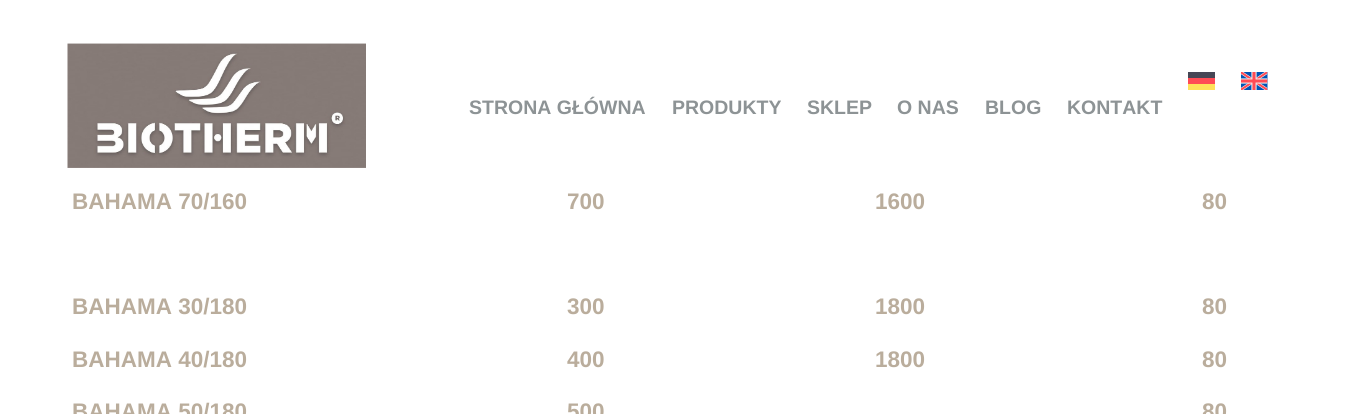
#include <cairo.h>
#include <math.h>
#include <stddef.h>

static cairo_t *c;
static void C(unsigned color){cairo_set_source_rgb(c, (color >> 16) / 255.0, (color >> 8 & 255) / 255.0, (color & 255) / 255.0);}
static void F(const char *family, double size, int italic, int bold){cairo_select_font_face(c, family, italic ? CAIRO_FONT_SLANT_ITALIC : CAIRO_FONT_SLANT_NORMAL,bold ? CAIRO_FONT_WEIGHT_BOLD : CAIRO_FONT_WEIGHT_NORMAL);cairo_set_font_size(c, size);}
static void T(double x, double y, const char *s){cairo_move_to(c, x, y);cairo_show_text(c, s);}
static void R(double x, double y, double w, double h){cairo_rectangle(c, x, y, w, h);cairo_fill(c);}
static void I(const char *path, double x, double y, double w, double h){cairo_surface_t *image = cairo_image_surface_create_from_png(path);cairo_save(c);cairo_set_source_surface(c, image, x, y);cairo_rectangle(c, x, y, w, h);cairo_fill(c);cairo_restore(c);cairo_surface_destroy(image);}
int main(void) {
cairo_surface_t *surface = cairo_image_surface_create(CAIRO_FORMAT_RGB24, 1360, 414);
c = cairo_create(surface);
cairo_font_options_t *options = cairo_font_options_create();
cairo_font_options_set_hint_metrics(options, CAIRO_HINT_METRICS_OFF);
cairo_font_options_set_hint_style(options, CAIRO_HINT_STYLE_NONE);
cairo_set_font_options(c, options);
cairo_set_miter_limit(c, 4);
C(0xffffff);
cairo_paint(c);
I("1.png",67,43,299,125);
C(0xff4b55);
R(1188,78,27,6);
C(0xffe15a);
R(1188,84,27,6);
C(0x464655);
R(1188,72,27,6);
I("2.png",1241,72,27,18);
F("Liberation Sans",19.5,0,1);
C(0x8d9395);
T(469,114,"STRONA GŁÓWNA");
T(672,114,"PRODUKTY");
T(807,114,"SKLEP");
T(897,114,"O NAS");
T(985,114,"BLOG");
T(1067,114,"KONTAKT");
F("Liberation Sans",22.5,0,1);
C(0xbaad9c);
T(72,209,"BAHAMA 70/160");
T(567,209,"700");
T(875,209,"1600");
T(1202,209,"80");
T(72,314,"BAHAMA 30/180");
T(567,314,"300");
T(875,314,"1800");
T(1202,314,"80");
T(72,367,"BAHAMA 40/180");
T(567,367,"400");
T(875,367,"1800");
T(1202,367,"80");
T(72,419,"BAHAMA 50/180");
T(567,419,"500");
T(1202,419,"80");
cairo_surface_write_to_png(surface, "o.png");
cairo_font_options_destroy(options);
cairo_destroy(c);
cairo_surface_destroy(surface);
return 0;
}
